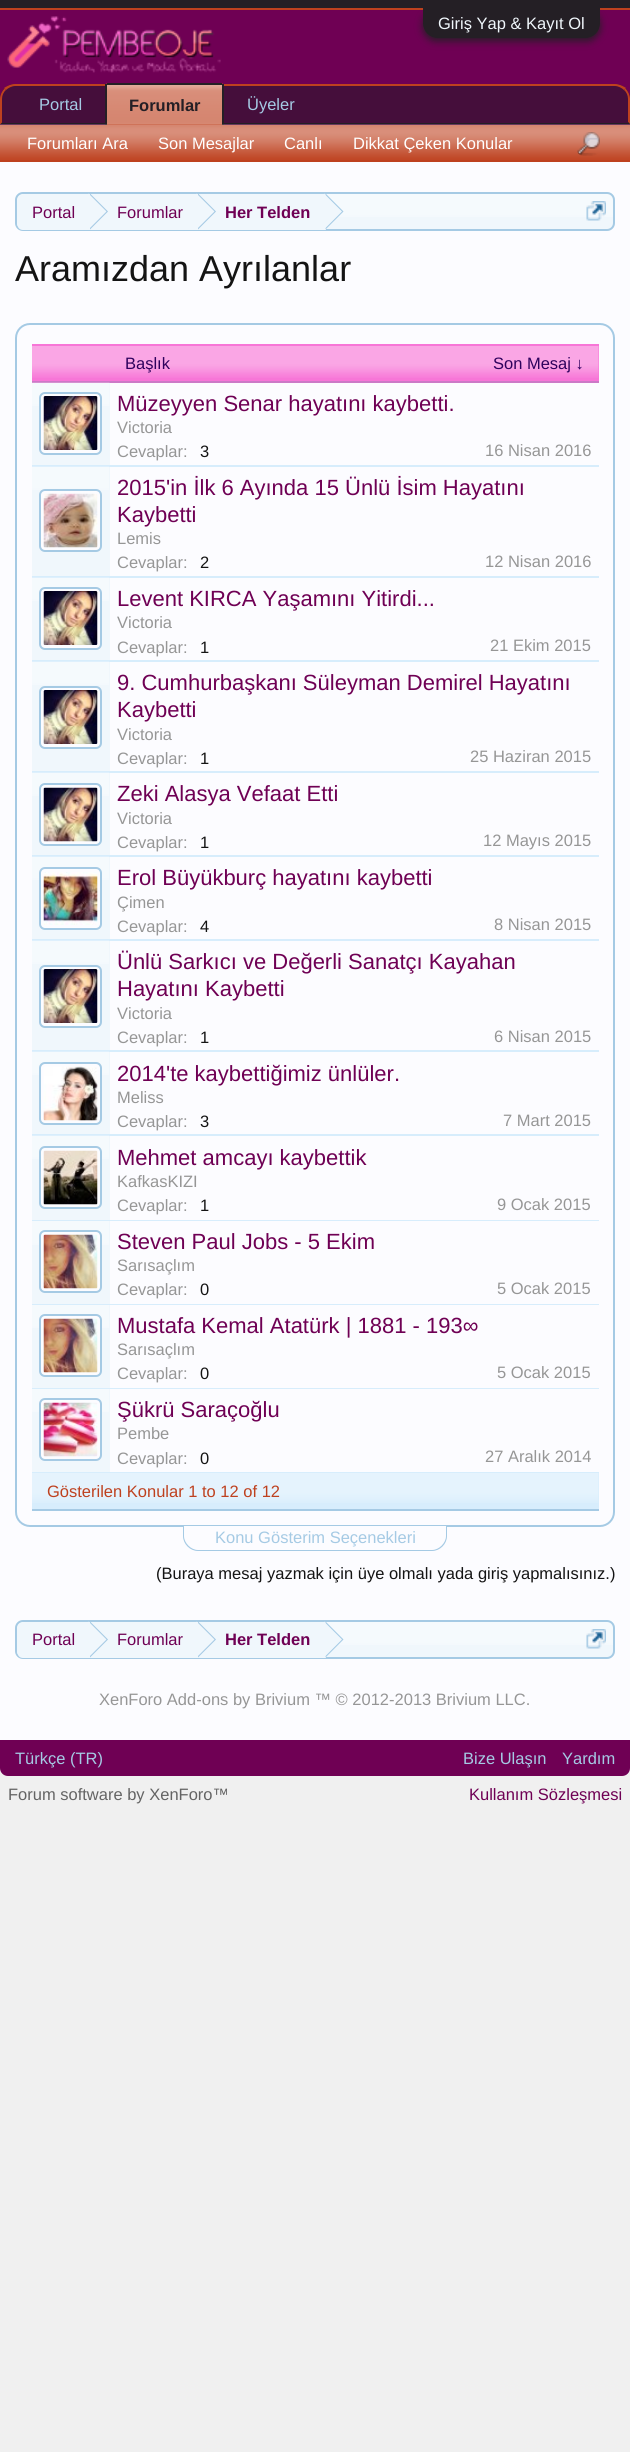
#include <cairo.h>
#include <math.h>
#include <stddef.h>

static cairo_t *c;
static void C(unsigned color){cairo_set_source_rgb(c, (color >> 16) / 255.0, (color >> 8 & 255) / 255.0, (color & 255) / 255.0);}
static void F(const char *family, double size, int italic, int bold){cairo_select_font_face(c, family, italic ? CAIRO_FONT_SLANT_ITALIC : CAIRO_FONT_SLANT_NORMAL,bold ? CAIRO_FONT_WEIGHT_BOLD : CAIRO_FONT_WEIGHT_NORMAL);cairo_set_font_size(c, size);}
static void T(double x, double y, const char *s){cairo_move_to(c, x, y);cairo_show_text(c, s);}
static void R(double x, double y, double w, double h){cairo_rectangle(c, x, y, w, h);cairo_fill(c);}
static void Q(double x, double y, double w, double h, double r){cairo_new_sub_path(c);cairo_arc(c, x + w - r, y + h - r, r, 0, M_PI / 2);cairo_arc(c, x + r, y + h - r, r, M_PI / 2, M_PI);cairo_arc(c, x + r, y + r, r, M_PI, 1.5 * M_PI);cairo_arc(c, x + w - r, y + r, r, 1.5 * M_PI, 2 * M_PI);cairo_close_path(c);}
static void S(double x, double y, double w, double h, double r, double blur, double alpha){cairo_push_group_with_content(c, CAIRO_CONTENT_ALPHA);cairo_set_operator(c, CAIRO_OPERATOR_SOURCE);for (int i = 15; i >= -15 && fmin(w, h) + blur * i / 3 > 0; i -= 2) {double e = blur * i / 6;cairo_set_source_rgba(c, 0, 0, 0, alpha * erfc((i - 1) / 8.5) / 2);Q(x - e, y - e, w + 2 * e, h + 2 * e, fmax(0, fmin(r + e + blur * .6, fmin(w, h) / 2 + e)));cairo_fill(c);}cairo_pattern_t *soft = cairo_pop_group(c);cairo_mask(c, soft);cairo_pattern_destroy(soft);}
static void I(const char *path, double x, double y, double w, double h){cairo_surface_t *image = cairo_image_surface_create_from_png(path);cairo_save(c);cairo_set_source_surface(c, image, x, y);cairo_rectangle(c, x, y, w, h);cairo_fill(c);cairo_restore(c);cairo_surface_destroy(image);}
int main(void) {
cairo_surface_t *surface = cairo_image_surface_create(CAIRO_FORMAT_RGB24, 630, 2452);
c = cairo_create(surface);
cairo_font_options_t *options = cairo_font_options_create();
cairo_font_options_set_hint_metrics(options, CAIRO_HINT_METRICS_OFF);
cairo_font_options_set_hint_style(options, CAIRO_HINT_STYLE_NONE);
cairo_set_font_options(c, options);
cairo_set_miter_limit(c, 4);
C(0xf0f0f0);
cairo_paint(c);
C(0x241f25);
R(0,0,630,8);
C(0xbe411f);
R(0,8,630,2);
C(0x6f0054);
R(0,10,630,89);
C(0x241f25);
S(423,11,177,30,15,4,1);
C(0x241f25);
cairo_new_path(c);
cairo_move_to(c,423,8);
cairo_line_to(c,600,8);
cairo_line_to(c,600,23);
cairo_curve_to(c,600,31.5,593.5,38,585,38);
cairo_line_to(c,438,38);
cairo_curve_to(c,429.5,38,423,31.5,423,23);
cairo_close_path(c);
cairo_fill(c);
F("Liberation Sans",16.5,0,0);
C(0xf0f7fc);
T(438,29,"Giriş Yap & Kayıt Ol");
I("1.png",7,16,214,57);
C(0x450e3b);
cairo_new_path(c);
cairo_move_to(c,15,84);
cairo_line_to(c,615,84);
cairo_curve_to(c,623.5,84,630,90.5,630,99);
cairo_line_to(c,630,125);
cairo_line_to(c,0,125);
cairo_line_to(c,0,99);
cairo_curve_to(c,0,90.5,6.5,84,15,84);
cairo_close_path(c);
cairo_fill(c);
C(0xbe411f);
cairo_new_path(c);
cairo_move_to(c,15,84);
cairo_curve_to(c,11,84,7,86,4,88);
cairo_line_to(c,6,90);
cairo_curve_to(c,8,88,12,86,15,86);
cairo_line_to(c,615,86);
cairo_curve_to(c,618,86,622,88,624,90);
cairo_line_to(c,626,88);
cairo_curve_to(c,623,86,619,84,615,84);
cairo_close_path(c);
cairo_fill(c);
cairo_new_path(c);
cairo_move_to(c,630,124);
cairo_line_to(c,630,99);
cairo_curve_to(c,630,95,628,91,625.5,88.5);
cairo_line_to(c,624,90);
cairo_curve_to(c,626.5,92,628,95.5,628,99);
cairo_line_to(c,628,122.5);
cairo_line_to(c,629.5,124);
cairo_close_path(c);
cairo_fill(c);
C(0x241f25);
cairo_new_path(c);
cairo_move_to(c,630,124);
cairo_line_to(c,0,124);
cairo_line_to(c,2,122);
cairo_line_to(c,2,123);
cairo_line_to(c,628,123);
cairo_line_to(c,628,122);
cairo_close_path(c);
cairo_fill(c);
C(0xbe411f);
cairo_new_path(c);
cairo_move_to(c,0,99);
cairo_line_to(c,0,124);
cairo_line_to(c,.5,124);
cairo_line_to(c,2,122.5);
cairo_line_to(c,2,99);
cairo_curve_to(c,2,95.5,3.5,92,6,90);
cairo_line_to(c,4.5,88.5);
cairo_curve_to(c,2,91,0,95,0,99);
cairo_close_path(c);
cairo_fill(c);
C(0xa5cae4);
T(39,110,"Portal");
T(247,110,"Üyeler");
C(0xbe411f);
cairo_new_path(c);
cairo_move_to(c,108,83);
cairo_line_to(c,221,83);
cairo_curve_to(c,222.5,83,224,84.5,224,86);
cairo_line_to(c,224,125);
cairo_line_to(c,105,125);
cairo_line_to(c,105,86);
cairo_curve_to(c,105,84.5,106.5,83,108,83);
cairo_close_path(c);
cairo_fill(c);
I("2.png",107,85,115,40);
C(0x241f25);
R(107,83,115,2);
R(222,84,2,41);
R(105,84,2,41);
F("Liberation Sans",16.5,0,1);
T(129,111,"Forumlar");
C(0xbe411f);
R(0,125,630,37);
I("3.png",0,124,630,36);
F("Liberation Sans",16.5,0,0);
C(0xffffff);
T(27,149,"Forumları Ara");
T(158,149,"Son Mesajlar");
T(284,149,"Canlı");
T(353,149,"Dikkat Çeken Konular");
I("4.png",577,132,23,24);
C(0xfcfcff);
R(0,162,630,1578);
C(0xf0f7fc);
Q(15,192,600,39,8);
cairo_fill(c);
I("5.png",15,194,600,23);
Q(16,193,598,37,7);
C(0xa5cae4);
cairo_stroke(c);
cairo_save(c);
Q(17,194,597,36,6);
cairo_clip(c);
C(0xf0f7fc);
cairo_new_path(c);
cairo_move_to(c,25,194);
cairo_line_to(c,90,194);
cairo_line_to(c,90,231);
cairo_line_to(c,25,231);
cairo_curve_to(c,20.5,231,17,227.5,17,223);
cairo_line_to(c,17,202);
cairo_curve_to(c,17,197.5,20.5,194,25,194);
cairo_close_path(c);
cairo_fill(c);
cairo_restore(c);
C(0x6f0054);
T(32,218,"Portal");
C(0xf0f7fc);
R(90,194,236,36);
C(0xa5cae4);
cairo_new_path(c);
cairo_move_to(c,90,229.5);
cairo_line_to(c,90,193.5);
cairo_line_to(c,108,211.5);
cairo_close_path(c);
cairo_fill(c);
C(0xf0f7fc);
cairo_new_path(c);
cairo_move_to(c,88.5,229.5);
cairo_line_to(c,88.5,193.5);
cairo_line_to(c,106.5,211.5);
cairo_close_path(c);
cairo_fill(c);
C(0x6f0054);
T(117,218,"Forumlar");
C(0xa5cae4);
cairo_new_path(c);
cairo_move_to(c,198,229.5);
cairo_line_to(c,198,193.5);
cairo_line_to(c,216,211.5);
cairo_close_path(c);
cairo_fill(c);
C(0xf0f7fc);
cairo_new_path(c);
cairo_move_to(c,196.5,229.5);
cairo_line_to(c,196.5,193.5);
cairo_line_to(c,214.5,211.5);
cairo_close_path(c);
cairo_fill(c);
F("Liberation Sans",16.5,0,1);
C(0x6f0054);
T(225,218,"Her Telden");
C(0xa5cae4);
cairo_new_path(c);
cairo_move_to(c,325.5,229.5);
cairo_line_to(c,325.5,193.5);
cairo_line_to(c,343.5,211.5);
cairo_close_path(c);
cairo_fill(c);
C(0xf0f7fc);
cairo_new_path(c);
cairo_move_to(c,324,229.5);
cairo_line_to(c,324,193.5);
cairo_line_to(c,342,211.5);
cairo_close_path(c);
cairo_fill(c);
I("6.png",586,201,20,20);
F("Liberation Sans",36,0,0);
C(0x141414);
T(15,281,"Aramızdan Ayrılanlar");
Q(16,324,598,1202,14);
C(0xa5cae4);
cairo_stroke(c);
C(0xf776d7);
R(32,344,567,37);
I("7.png",32,346,567,32);
C(0xcc79c7);
R(32,381,567,2);
F("Liberation Sans",16.5,0,0);
C(0x2e015d);
T(125,369,"Başlık");
T(493,369,"Son Mesaj ↓");
C(0xd7edfc);
R(32,465,567,2);
C(0xf0f7fc);
R(32,383,78,82);
I("8.png",32,382,78,24);
C(0xfcfcff);
Q(40,393,61,61,5);
cairo_fill_preserve(c);
C(0xa5cae4);
cairo_stroke(c);
I("9.png",43,396,55,54);
F("Liberation Sans",22,0,0);
C(0x6f0054);
T(117,411,"Müzeyyen Senar hayatını kaybetti.");
F("Liberation Sans",16.5,0,0);
C(0x969696);
T(117,433,"Victoria");
T(117,457,"Cevaplar:");
C(0x141414);
T(200,457,"3");
C(0x969696);
T(485,456,"16 Nisan 2016");
C(0xd7edfc);
R(32,576,567,2);
C(0xf0f7fc);
R(32,467,78,109);
I("10.png",32,466,77,24);
C(0xfcfcff);
Q(40,490,61,61,5);
cairo_fill_preserve(c);
C(0xa5cae4);
cairo_stroke(c);
I("11.png",43,493,55,55);
F("Liberation Sans",22,0,0);
C(0x6f0054);
T(117,495,"2015'in İlk 6 Ayında 15 Ünlü İsim Hayatını");
T(117,522,"Kaybetti");
F("Liberation Sans",16.5,0,0);
C(0x969696);
T(117,544,"Lemis");
T(117,568,"Cevaplar:");
C(0x141414);
T(200,568,"2");
C(0x969696);
T(485,567,"12 Nisan 2016");
C(0xd7edfc);
R(32,660,567,2);
C(0xf0f7fc);
R(32,578,78,82);
I("10.png",32,577,77,24);
C(0xfcfcff);
Q(40,588,61,61,5);
cairo_fill_preserve(c);
C(0xa5cae4);
cairo_stroke(c);
I("9.png",43,591,55,54);
F("Liberation Sans",22,0,0);
C(0x6f0054);
T(117,606,"Levent KIRCA Yaşamını Yitirdi...");
F("Liberation Sans",16.5,0,0);
C(0x969696);
T(117,628,"Victoria");
T(117,653,"Cevaplar:");
C(0x141414);
T(200,653,"1");
C(0x969696);
T(490,651,"21 Ekim 2015");
C(0xd7edfc);
R(32,771,567,2);
C(0xf0f7fc);
R(32,662,78,109);
I("10.png",32,661,77,24);
C(0xfcfcff);
Q(40,687,61,61,5);
cairo_fill_preserve(c);
C(0xa5cae4);
cairo_stroke(c);
I("9.png",43,690,55,54);
F("Liberation Sans",22,0,0);
C(0x6f0054);
T(117,690,"9. Cumhurbaşkanı Süleyman Demirel Hayatını");
T(117,717,"Kaybetti");
F("Liberation Sans",16.5,0,0);
C(0x969696);
T(117,740,"Victoria");
T(117,764,"Cevaplar:");
C(0x141414);
T(200,764,"1");
C(0x969696);
T(470,762,"25 Haziran 2015");
C(0xd7edfc);
R(32,855,567,2);
C(0xf0f7fc);
R(32,773,78,82);
I("10.png",32,772,77,24);
C(0xfcfcff);
Q(40,784,61,61,5);
cairo_fill_preserve(c);
C(0xa5cae4);
cairo_stroke(c);
I("12.png",43,787,55,55);
F("Liberation Sans",22,0,0);
C(0x6f0054);
T(117,801,"Zeki Alasya Vefaat Etti");
F("Liberation Sans",16.5,0,0);
C(0x969696);
T(117,824,"Victoria");
T(117,848,"Cevaplar:");
C(0x141414);
T(200,848,"1");
C(0x969696);
T(483,846,"12 Mayıs 2015");
C(0xd7edfc);
R(32,939,567,2);
C(0xf0f7fc);
R(32,857,78,82);
I("10.png",32,856,77,24);
C(0xfcfcff);
Q(40,868,61,61,5);
cairo_fill_preserve(c);
C(0xa5cae4);
cairo_stroke(c);
I("13.png",43,872,55,53);
F("Liberation Sans",22,0,0);
C(0x6f0054);
T(117,885,"Erol Büyükburç hayatını kaybetti");
F("Liberation Sans",16.5,0,0);
C(0x969696);
T(117,908,"Çimen");
T(117,932,"Cevaplar:");
C(0x141414);
T(200,932,"4");
C(0x969696);
T(494,930,"8 Nisan 2015");
C(0xd7edfc);
R(32,1050,567,2);
C(0xf0f7fc);
R(32,941,78,109);
I("10.png",32,940,77,24);
C(0xfcfcff);
Q(40,966,61,61,5);
cairo_fill_preserve(c);
C(0xa5cae4);
cairo_stroke(c);
I("9.png",43,969,55,54);
F("Liberation Sans",22,0,0);
C(0x6f0054);
T(117,969,"Ünlü Sarkıcı ve Değerli Sanatçı Kayahan");
T(117,996,"Hayatını Kaybetti");
F("Liberation Sans",16.5,0,0);
C(0x969696);
T(117,1019,"Victoria");
T(117,1043,"Cevaplar:");
C(0x141414);
T(200,1043,"1");
C(0x969696);
T(494,1042,"6 Nisan 2015");
C(0xd7edfc);
R(32,1134,567,2);
C(0xf0f7fc);
R(32,1052,78,82);
I("10.png",32,1051,77,24);
C(0xfcfcff);
Q(40,1063,61,61,5);
cairo_fill_preserve(c);
C(0xa5cae4);
cairo_stroke(c);
I("14.png",43,1066,55,55);
F("Liberation Sans",22,0,0);
C(0x6f0054);
T(117,1081,"2014'te kaybettiğimiz ünlüler.");
F("Liberation Sans",16.5,0,0);
C(0x969696);
T(117,1103,"Meliss");
T(117,1127,"Cevaplar:");
C(0x141414);
T(200,1127,"3");
C(0x969696);
T(503,1126,"7 Mart 2015");
C(0xd7edfc);
R(32,1220,567,1);
C(0xf0f7fc);
R(32,1136,78,84);
I("10.png",32,1135,77,24);
C(0xfcfcff);
Q(40,1147,61,61,5);
cairo_fill_preserve(c);
C(0xa5cae4);
cairo_stroke(c);
I("15.png",43,1150,55,55);
F("Liberation Sans",22,0,0);
C(0x6f0054);
T(117,1165,"Mehmet amcayı kaybettik");
F("Liberation Sans",16.5,0,0);
C(0x969696);
T(117,1187,"KafkasKIZI");
T(117,1211,"Cevaplar:");
C(0x141414);
T(200,1211,"1");
C(0x969696);
T(497,1210,"9 Ocak 2015");
C(0xd7edfc);
R(32,1304,567,1);
C(0xf0f7fc);
R(32,1221,78,83);
I("16.png",32,1221,77,24);
C(0xfcfcff);
Q(40,1231,61,61,5);
cairo_fill_preserve(c);
C(0xa5cae4);
cairo_stroke(c);
I("17.png",43,1234,55,55);
F("Liberation Sans",22,0,0);
C(0x6f0054);
T(117,1249,"Steven Paul Jobs - 5 Ekim");
F("Liberation Sans",16.5,0,0);
C(0x969696);
T(117,1271,"Sarısaçlım");
T(117,1295,"Cevaplar:");
C(0x141414);
T(200,1295,"0");
C(0x969696);
T(497,1294,"5 Ocak 2015");
C(0xd7edfc);
R(32,1388,567,1);
C(0xf0f7fc);
R(32,1305,78,83);
I("18.png",32,1305,77,23);
C(0xfcfcff);
Q(40,1315,61,61,5);
cairo_fill_preserve(c);
C(0xa5cae4);
cairo_stroke(c);
I("17.png",43,1318,55,55);
F("Liberation Sans",22,0,0);
C(0x6f0054);
T(117,1333,"Mustafa Kemal Atatürk | 1881 - 193∞");
F("Liberation Sans",16.5,0,0);
C(0x969696);
T(117,1355,"Sarısaçlım");
T(117,1379,"Cevaplar:");
C(0x141414);
T(200,1379,"0");
C(0x969696);
T(497,1378,"5 Ocak 2015");
C(0xd7edfc);
R(32,1472,567,37);
C(0xf0f7fc);
R(32,1389,78,83);
I("18.png",32,1389,77,23);
C(0xfcfcff);
Q(40,1399,61,61,5);
cairo_fill_preserve(c);
C(0xa5cae4);
cairo_stroke(c);
I("19.png",43,1402,55,55);
F("Liberation Sans",22,0,0);
C(0x6f0054);
T(117,1417,"Şükrü Saraçoğlu");
F("Liberation Sans",16.5,0,0);
C(0x969696);
T(117,1439,"Pembe");
T(117,1464,"Cevaplar:");
C(0x141414);
T(200,1464,"0");
C(0x969696);
T(485,1462,"27 Aralık 2014");
I("20.png",32,1473,567,30);
C(0xa5cae4);
R(32,1509,567,2);
C(0xbe411f);
T(47,1497,"Gösterilen Konular 1 to 12 of 12");
C(0xfcfcff);
cairo_new_path(c);
cairo_move_to(c,183,1526);
cairo_line_to(c,447,1526);
cairo_line_to(c,447,1536);
cairo_curve_to(c,447,1544.5,440.5,1551,432,1551);
cairo_line_to(c,198,1551);
cairo_curve_to(c,189.5,1551,183,1544.5,183,1536);
cairo_close_path(c);
cairo_fill(c);
C(0xa5cae4);
cairo_set_fill_rule(c,CAIRO_FILL_RULE_EVEN_ODD);
cairo_new_path(c);
cairo_move_to(c,183,1526);
cairo_line_to(c,447,1526);
cairo_line_to(c,447,1536);
cairo_curve_to(c,447,1544,440,1551,432,1551);
cairo_line_to(c,198,1551);
cairo_curve_to(c,190,1551,183,1544,183,1536);
cairo_close_path(c);
cairo_move_to(c,184,1526);
cairo_line_to(c,446,1526);
cairo_line_to(c,446,1536);
cairo_curve_to(c,446,1543,439,1550,432,1550);
cairo_line_to(c,198,1550);
cairo_curve_to(c,191,1550,184,1543,184,1536);
cairo_close_path(c);
cairo_fill(c);
T(215,1543,"Konu Gösterim Seçenekleri");
C(0x141414);
T(156,1579,"(Buraya mesaj yazmak için üye olmalı yada giriş yapmalısınız.)");
C(0xf0f7fc);
Q(15,1620,600,39,8);
cairo_fill(c);
I("5.png",15,1622,600,23);
Q(16,1621,598,37,7);
C(0xa5cae4);
cairo_stroke(c);
cairo_save(c);
cairo_set_fill_rule(c,CAIRO_FILL_RULE_WINDING);
Q(17,1622,597,36,6);
cairo_clip(c);
C(0xf0f7fc);
cairo_new_path(c);
cairo_move_to(c,25,1622);
cairo_line_to(c,90,1622);
cairo_line_to(c,90,1659);
cairo_line_to(c,25,1659);
cairo_curve_to(c,20.5,1659,17,1655.5,17,1651);
cairo_line_to(c,17,1630);
cairo_curve_to(c,17,1625.5,20.5,1622,25,1622);
cairo_close_path(c);
cairo_fill(c);
cairo_restore(c);
C(0x6f0054);
T(32,1645,"Portal");
C(0xf0f7fc);
R(90,1622,236,36);
C(0xa5cae4);
cairo_set_fill_rule(c,CAIRO_FILL_RULE_WINDING);
cairo_new_path(c);
cairo_move_to(c,90,1657.5);
cairo_line_to(c,90,1621.5);
cairo_line_to(c,108,1639.5);
cairo_close_path(c);
cairo_fill(c);
C(0xf0f7fc);
cairo_new_path(c);
cairo_move_to(c,88.5,1657.5);
cairo_line_to(c,88.5,1621.5);
cairo_line_to(c,106.5,1639.5);
cairo_close_path(c);
cairo_fill(c);
C(0x6f0054);
T(117,1645,"Forumlar");
C(0xa5cae4);
cairo_new_path(c);
cairo_move_to(c,198,1657.5);
cairo_line_to(c,198,1621.5);
cairo_line_to(c,216,1639.5);
cairo_close_path(c);
cairo_fill(c);
C(0xf0f7fc);
cairo_new_path(c);
cairo_move_to(c,196.5,1657.5);
cairo_line_to(c,196.5,1621.5);
cairo_line_to(c,214.5,1639.5);
cairo_close_path(c);
cairo_fill(c);
F("Liberation Sans",16.5,0,1);
C(0x6f0054);
T(225,1645,"Her Telden");
C(0xa5cae4);
cairo_new_path(c);
cairo_move_to(c,325.5,1657.5);
cairo_line_to(c,325.5,1621.5);
cairo_line_to(c,343.5,1639.5);
cairo_close_path(c);
cairo_fill(c);
C(0xf0f7fc);
cairo_new_path(c);
cairo_move_to(c,324,1657.5);
cairo_line_to(c,324,1621.5);
cairo_line_to(c,342,1639.5);
cairo_close_path(c);
cairo_fill(c);
I("6.png",586,1629,20,20);
F("Liberation Sans",16.5,0,0);
C(0x969696);
T(99,1705,"XenForo Add-ons by Brivium ™ © 2012-2013 Brivium LLC.");
C(0x6f0054);
cairo_new_path(c);
cairo_move_to(c,0,1740);
cairo_line_to(c,630,1740);
cairo_line_to(c,630,1768);
cairo_curve_to(c,630,1772.5,626.5,1776,622,1776);
cairo_line_to(c,8,1776);
cairo_curve_to(c,3.5,1776,0,1772.5,0,1768);
cairo_close_path(c);
cairo_fill(c);
C(0xa5cae4);
T(15,1764,"Türkçe (TR)");
T(463,1764,"Bize Ulaşın");
T(562,1764,"Yardım");
C(0x646464);
T(8,1800,"Forum software by XenForo™");
C(0x6f0054);
T(469,1800,"Kullanım Sözleşmesi");
cairo_surface_write_to_png(surface, "o.png");
cairo_font_options_destroy(options);
cairo_destroy(c);
cairo_surface_destroy(surface);
return 0;
}
